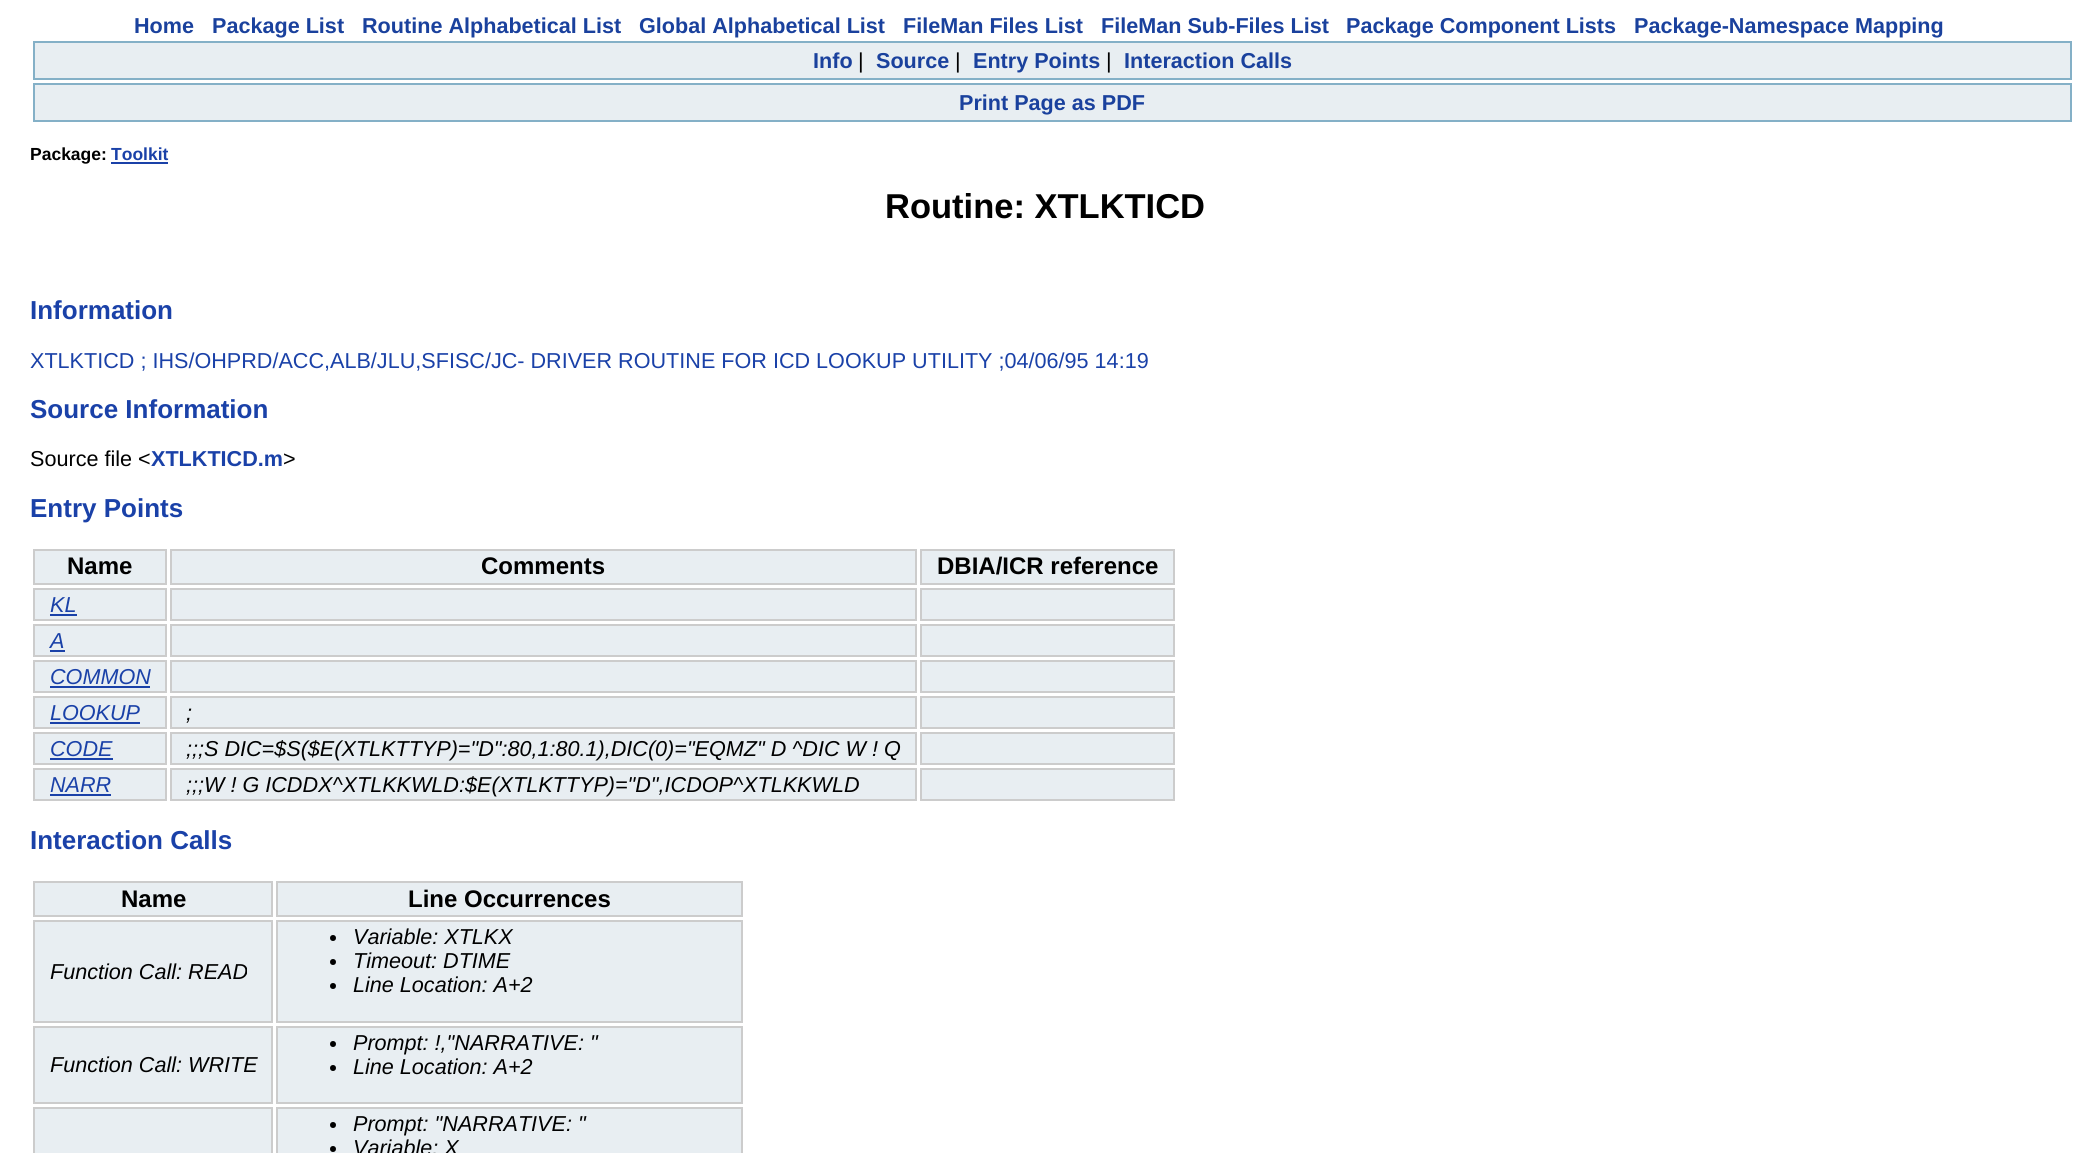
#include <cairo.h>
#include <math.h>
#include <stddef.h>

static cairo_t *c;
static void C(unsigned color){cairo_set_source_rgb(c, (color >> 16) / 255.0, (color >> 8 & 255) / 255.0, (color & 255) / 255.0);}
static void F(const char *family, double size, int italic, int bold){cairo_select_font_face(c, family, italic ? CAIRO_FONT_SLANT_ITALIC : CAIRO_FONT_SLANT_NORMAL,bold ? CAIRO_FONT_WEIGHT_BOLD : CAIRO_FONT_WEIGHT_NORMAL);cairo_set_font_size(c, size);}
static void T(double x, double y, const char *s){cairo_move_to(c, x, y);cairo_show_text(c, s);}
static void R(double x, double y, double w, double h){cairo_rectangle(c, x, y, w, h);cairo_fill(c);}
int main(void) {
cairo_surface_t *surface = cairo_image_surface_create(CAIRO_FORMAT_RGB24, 2089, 1153);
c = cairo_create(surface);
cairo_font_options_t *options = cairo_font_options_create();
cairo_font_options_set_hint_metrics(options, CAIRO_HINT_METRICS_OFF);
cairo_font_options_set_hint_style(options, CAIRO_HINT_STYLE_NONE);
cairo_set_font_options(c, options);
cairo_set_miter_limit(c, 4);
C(0xffffff);
cairo_paint(c);
F("Liberation Sans",21.6,0,1);
C(0x1a419d);
T(134,33,"Home");
T(212,33,"Package List");
T(362,33,"Routine Alphabetical List");
T(639,33,"Global Alphabetical List");
T(903,33,"FileMan Files List");
T(1101,33,"FileMan Sub-Files List");
T(1346,33,"Package Component Lists");
T(1634,33,"Package-Namespace Mapping");
C(0xe8eef2);
cairo_rectangle(c,34,42,2037,37);
cairo_fill_preserve(c);
C(0x84b0c7);
cairo_stroke(c);
C(0x1a419d);
T(813,68,"Info");
F("Liberation Sans",21.6,0,0);
C(0x000000);
T(858,68,"|");
F("Liberation Sans",21.6,0,1);
C(0x1a419d);
T(876,68,"Source");
F("Liberation Sans",21.6,0,0);
C(0x000000);
T(955,68,"|");
F("Liberation Sans",21.6,0,1);
C(0x1a419d);
T(973,68,"Entry Points");
F("Liberation Sans",21.6,0,0);
C(0x000000);
T(1106,68,"|");
F("Liberation Sans",21.6,0,1);
C(0x1a419d);
T(1124,68,"Interaction Calls");
C(0xe8eef2);
cairo_rectangle(c,34,84,2037,37);
cairo_fill_preserve(c);
C(0x84b0c7);
cairo_stroke(c);
C(0x1a419d);
T(959,110,"Print Page as PDF");
F("Liberation Sans",17.5,0,1);
C(0x000000);
T(30,160,"Package:");
C(0x1a41a8);
T(111,160,"Toolkit");
R(111,162,57,2);
F("Liberation Sans",34.5,0,1);
C(0x000000);
T(885,218,"Routine: XTLKTICD");
F("Liberation Sans",26,0,1);
C(0x1a41a8);
T(30,319,"Information");
F("Liberation Sans",21.6,0,0);
T(30,368,"XTLKTICD ; IHS/OHPRD/ACC,ALB/JLU,SFISC/JC- DRIVER ROUTINE FOR ICD LOOKUP UTILITY ;04/06/95 14:19");
F("Liberation Sans",26,0,1);
T(30,418,"Source Information");
F("Liberation Sans",21.6,0,0);
C(0x000000);
T(30,466,"Source file <");
F("Liberation Sans",21.6,0,1);
C(0x1a41a8);
T(151,466,"XTLKTICD.m");
F("Liberation Sans",21.6,0,0);
C(0x000000);
T(283,466,">");
F("Liberation Sans",26,0,1);
C(0x1a41a8);
T(30,517,"Entry Points");
C(0xe8eef2);
cairo_rectangle(c,34,550,132,34);
cairo_fill_preserve(c);
C(0xcccccc);
cairo_stroke(c);
F("Liberation Sans",24,0,1);
C(0x000000);
T(67,574,"Name");
C(0xe8eef2);
cairo_rectangle(c,171,550,745,34);
cairo_fill_preserve(c);
C(0xcccccc);
cairo_stroke(c);
C(0x000000);
T(481,574,"Comments");
C(0xe8eef2);
cairo_rectangle(c,921,550,253,34);
cairo_fill_preserve(c);
C(0xcccccc);
cairo_stroke(c);
C(0x000000);
T(937,574,"DBIA/ICR reference");
C(0xe8eef2);
cairo_rectangle(c,34,589,132,31);
cairo_fill_preserve(c);
C(0xcccccc);
cairo_stroke(c);
F("Liberation Sans",21.6,1,0);
C(0x1a41a8);
T(50,612,"KL");
R(50,614,27,2);
C(0xe8eef2);
cairo_rectangle(c,171,589,745,31);
cairo_fill_preserve(c);
C(0xcccccc);
cairo_stroke(c);
C(0xe8eef2);
cairo_rectangle(c,921,589,253,31);
cairo_fill_preserve(c);
C(0xcccccc);
cairo_stroke(c);
C(0xe8eef2);
cairo_rectangle(c,34,625,132,31);
cairo_fill_preserve(c);
C(0xcccccc);
cairo_stroke(c);
C(0x1a41a8);
T(50,648,"A");
R(50,650,15,2);
C(0xe8eef2);
cairo_rectangle(c,171,625,745,31);
cairo_fill_preserve(c);
C(0xcccccc);
cairo_stroke(c);
C(0xe8eef2);
cairo_rectangle(c,921,625,253,31);
cairo_fill_preserve(c);
C(0xcccccc);
cairo_stroke(c);
C(0xe8eef2);
cairo_rectangle(c,34,661,132,31);
cairo_fill_preserve(c);
C(0xcccccc);
cairo_stroke(c);
C(0x1a41a8);
T(50,684,"COMMON");
R(50,686,100,2);
C(0xe8eef2);
cairo_rectangle(c,171,661,745,31);
cairo_fill_preserve(c);
C(0xcccccc);
cairo_stroke(c);
C(0xe8eef2);
cairo_rectangle(c,921,661,253,31);
cairo_fill_preserve(c);
C(0xcccccc);
cairo_stroke(c);
C(0xe8eef2);
cairo_rectangle(c,34,697,132,31);
cairo_fill_preserve(c);
C(0xcccccc);
cairo_stroke(c);
C(0x1a41a8);
T(50,720,"LOOKUP");
R(50,722,90,2);
C(0xe8eef2);
cairo_rectangle(c,171,697,745,31);
cairo_fill_preserve(c);
C(0xcccccc);
cairo_stroke(c);
C(0x000000);
T(186,720,";");
C(0xe8eef2);
cairo_rectangle(c,921,697,253,31);
cairo_fill_preserve(c);
C(0xcccccc);
cairo_stroke(c);
C(0xe8eef2);
cairo_rectangle(c,34,733,132,31);
cairo_fill_preserve(c);
C(0xcccccc);
cairo_stroke(c);
C(0x1a41a8);
T(50,756,"CODE");
R(50,758,63,2);
C(0xe8eef2);
cairo_rectangle(c,171,733,745,31);
cairo_fill_preserve(c);
C(0xcccccc);
cairo_stroke(c);
C(0x000000);
T(186,756,";;;S DIC=$S($E(XTLKTTYP)=\"D\":80,1:80.1),DIC(0)=\"EQMZ\" D ^DIC W ! Q");
C(0xe8eef2);
cairo_rectangle(c,921,733,253,31);
cairo_fill_preserve(c);
C(0xcccccc);
cairo_stroke(c);
C(0xe8eef2);
cairo_rectangle(c,34,769,132,31);
cairo_fill_preserve(c);
C(0xcccccc);
cairo_stroke(c);
C(0x1a41a8);
T(50,792,"NARR");
R(50,794,61,2);
C(0xe8eef2);
cairo_rectangle(c,171,769,745,31);
cairo_fill_preserve(c);
C(0xcccccc);
cairo_stroke(c);
C(0x000000);
T(186,792,";;;W ! G ICDDX^XTLKKWLD:$E(XTLKTTYP)=\"D\",ICDOP^XTLKKWLD");
C(0xe8eef2);
cairo_rectangle(c,921,769,253,31);
cairo_fill_preserve(c);
C(0xcccccc);
cairo_stroke(c);
F("Liberation Sans",26,0,1);
C(0x1a41a8);
T(30,849,"Interaction Calls");
C(0xe8eef2);
cairo_rectangle(c,34,882,238,34);
cairo_fill_preserve(c);
C(0xcccccc);
cairo_stroke(c);
F("Liberation Sans",24,0,1);
C(0x000000);
T(121,907,"Name");
C(0xe8eef2);
cairo_rectangle(c,277,882,465,34);
cairo_fill_preserve(c);
C(0xcccccc);
cairo_stroke(c);
C(0x000000);
T(408,907,"Line Occurrences");
C(0xe8eef2);
cairo_rectangle(c,34,921,238,101);
cairo_fill_preserve(c);
C(0xcccccc);
cairo_stroke(c);
F("Liberation Sans",21.6,1,0);
C(0x000000);
T(50,979,"Function Call: READ");
C(0xe8eef2);
cairo_rectangle(c,277,921,465,101);
cairo_fill_preserve(c);
C(0xcccccc);
cairo_stroke(c);
C(0x000000);
cairo_arc(c,333,938,3,0,2 * M_PI);
cairo_fill(c);
T(353,944,"Variable: XTLKX");
cairo_new_path(c);
cairo_arc(c,333,962,3,0,2 * M_PI);
cairo_fill(c);
T(353,968,"Timeout: DTIME");
cairo_new_path(c);
cairo_arc(c,333,986,3,0,2 * M_PI);
cairo_fill(c);
T(353,992,"Line Location: A+2");
C(0xe8eef2);
cairo_rectangle(c,34,1027,238,76);
cairo_fill_preserve(c);
C(0xcccccc);
cairo_stroke(c);
C(0x000000);
T(50,1072,"Function Call: WRITE");
C(0xe8eef2);
cairo_rectangle(c,277,1027,465,76);
cairo_fill_preserve(c);
C(0xcccccc);
cairo_stroke(c);
C(0x000000);
cairo_arc(c,333,1044,3,0,2 * M_PI);
cairo_fill(c);
T(353,1050,"Prompt: !,\"NARRATIVE: \"");
cairo_new_path(c);
cairo_arc(c,333,1068,3,0,2 * M_PI);
cairo_fill(c);
T(353,1074,"Line Location: A+2");
C(0xe8eef2);
cairo_rectangle(c,34,1108,238,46);
cairo_fill_preserve(c);
C(0xcccccc);
cairo_stroke(c);
C(0xe8eef2);
cairo_rectangle(c,277,1108,465,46);
cairo_fill_preserve(c);
C(0xcccccc);
cairo_stroke(c);
C(0x000000);
cairo_arc(c,333,1125,3,0,2 * M_PI);
cairo_fill(c);
T(353,1131,"Prompt: \"NARRATIVE: \"");
cairo_new_path(c);
cairo_arc(c,333,1149,3,0,2 * M_PI);
cairo_fill(c);
T(353,1155,"Variable: X");
cairo_surface_write_to_png(surface, "o.png");
cairo_font_options_destroy(options);
cairo_destroy(c);
cairo_surface_destroy(surface);
return 0;
}
